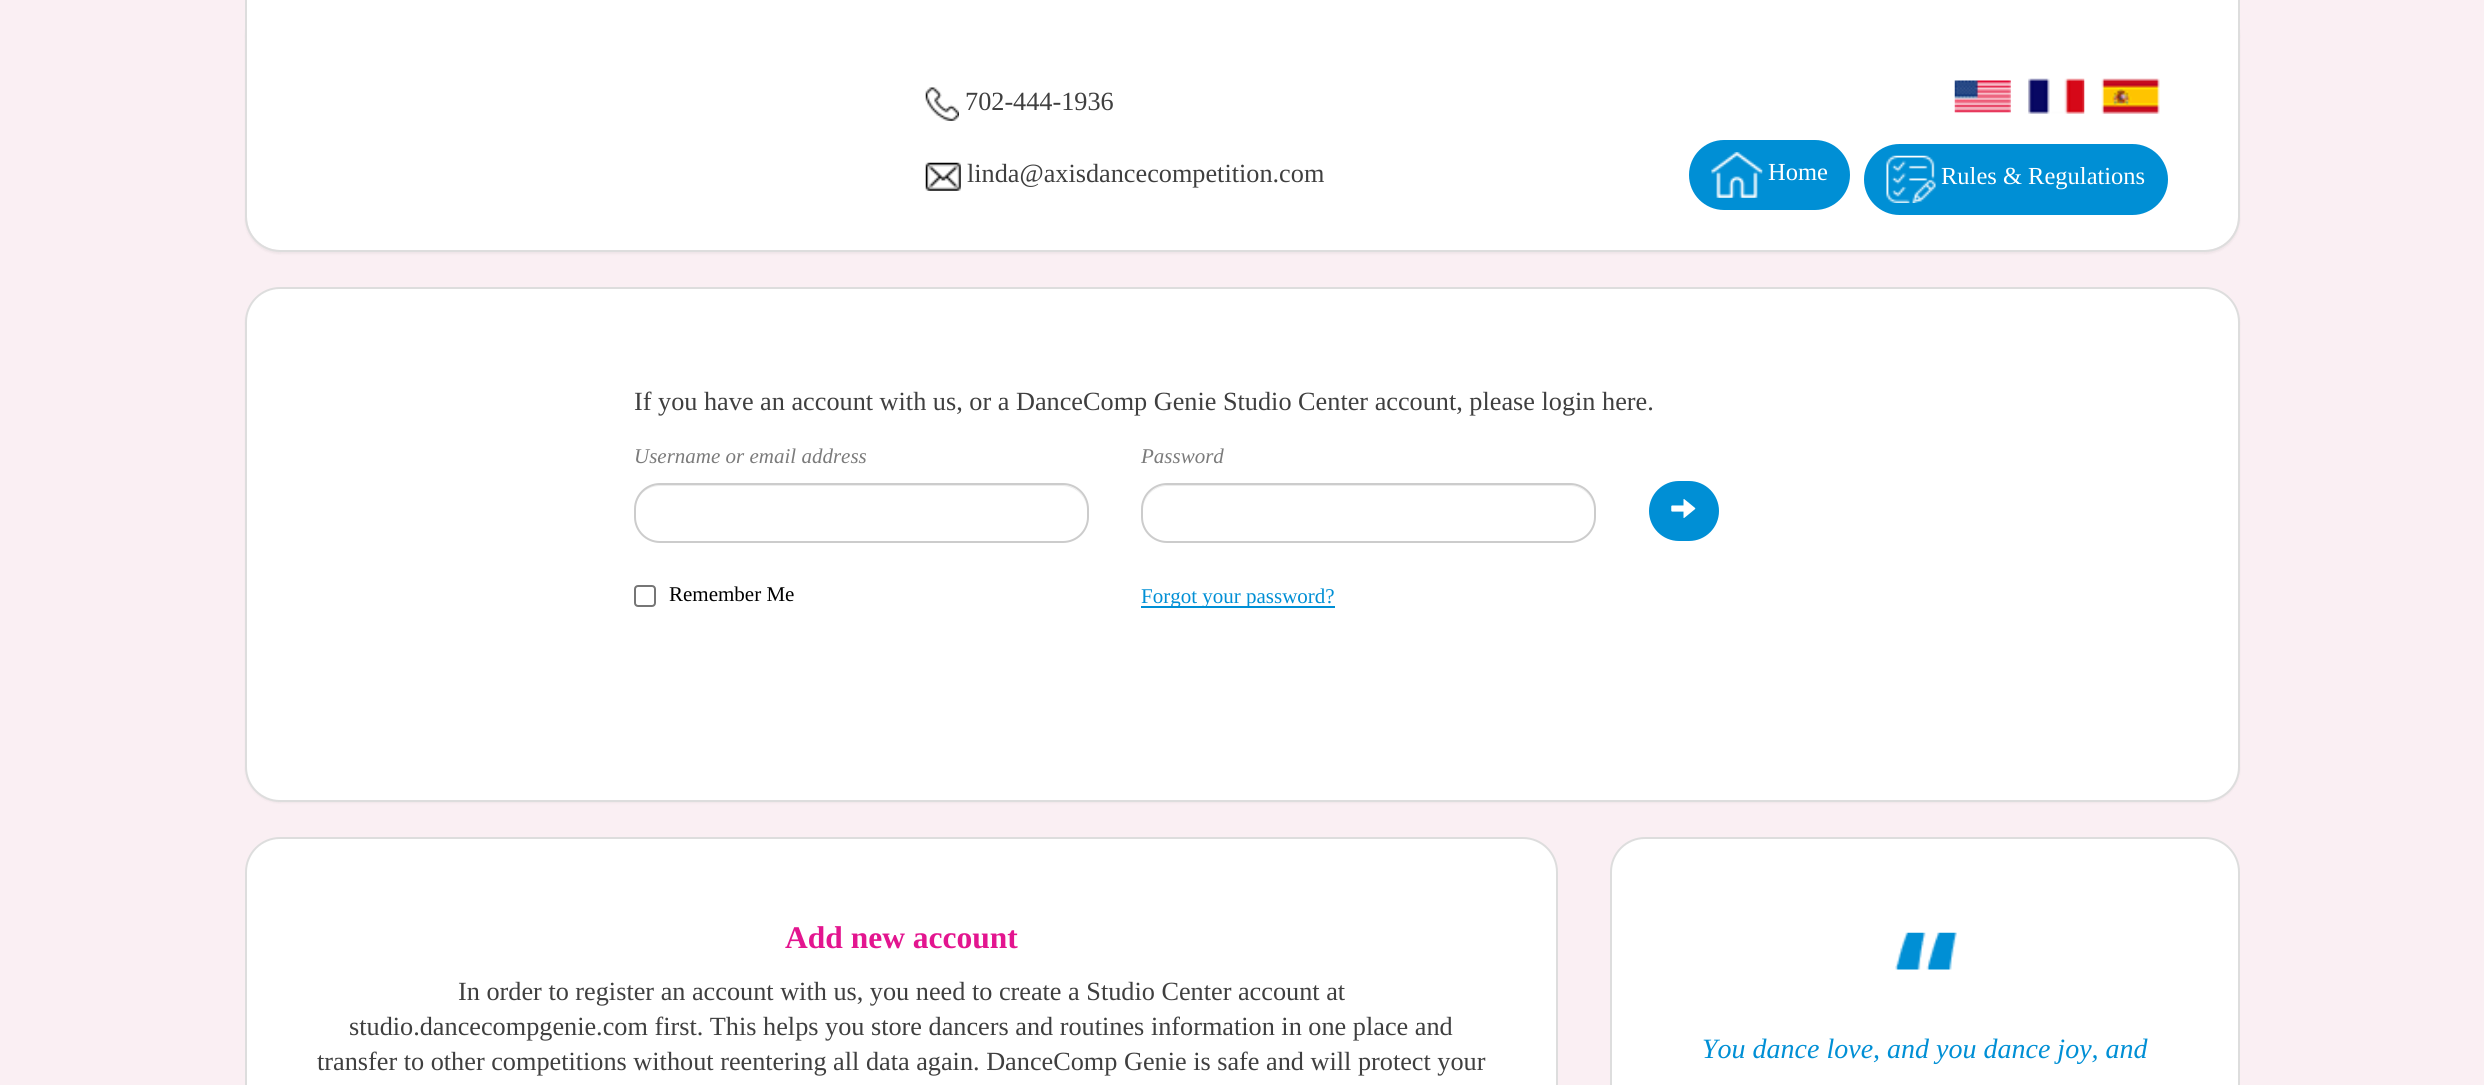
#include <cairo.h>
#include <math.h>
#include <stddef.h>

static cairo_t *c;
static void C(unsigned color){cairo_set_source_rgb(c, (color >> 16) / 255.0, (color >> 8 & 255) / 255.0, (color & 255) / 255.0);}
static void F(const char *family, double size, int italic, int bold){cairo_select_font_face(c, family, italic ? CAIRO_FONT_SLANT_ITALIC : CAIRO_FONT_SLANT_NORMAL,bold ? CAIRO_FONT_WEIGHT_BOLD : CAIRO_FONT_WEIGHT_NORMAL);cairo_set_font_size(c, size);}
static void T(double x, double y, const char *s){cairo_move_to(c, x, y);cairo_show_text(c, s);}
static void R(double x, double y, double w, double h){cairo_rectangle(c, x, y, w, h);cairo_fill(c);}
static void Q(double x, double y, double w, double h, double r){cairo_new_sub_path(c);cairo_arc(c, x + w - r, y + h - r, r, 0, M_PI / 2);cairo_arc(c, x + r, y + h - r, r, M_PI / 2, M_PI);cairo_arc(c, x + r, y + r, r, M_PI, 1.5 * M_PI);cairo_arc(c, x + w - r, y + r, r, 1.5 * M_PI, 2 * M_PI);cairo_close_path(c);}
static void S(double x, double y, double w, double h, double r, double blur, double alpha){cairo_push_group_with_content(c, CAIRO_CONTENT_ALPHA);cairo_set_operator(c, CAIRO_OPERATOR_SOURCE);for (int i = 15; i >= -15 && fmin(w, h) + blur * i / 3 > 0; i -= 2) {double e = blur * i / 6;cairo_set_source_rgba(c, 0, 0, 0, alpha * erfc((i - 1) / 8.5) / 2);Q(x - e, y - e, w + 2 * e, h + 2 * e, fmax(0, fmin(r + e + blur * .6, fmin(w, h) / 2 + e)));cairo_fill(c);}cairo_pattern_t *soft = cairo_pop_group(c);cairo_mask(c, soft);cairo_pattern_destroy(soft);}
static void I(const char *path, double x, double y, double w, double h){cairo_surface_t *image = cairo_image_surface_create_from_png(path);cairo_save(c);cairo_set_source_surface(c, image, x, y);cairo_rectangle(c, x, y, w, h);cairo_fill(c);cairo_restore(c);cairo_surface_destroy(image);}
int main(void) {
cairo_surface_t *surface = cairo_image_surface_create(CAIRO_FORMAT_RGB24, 2484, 1085);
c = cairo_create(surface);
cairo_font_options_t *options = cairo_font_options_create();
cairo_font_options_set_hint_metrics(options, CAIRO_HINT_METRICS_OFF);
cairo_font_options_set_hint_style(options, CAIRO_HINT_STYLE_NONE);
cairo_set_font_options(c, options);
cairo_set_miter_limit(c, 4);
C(0xfaeff3);
cairo_paint(c);
C(0x000000);
S(245,2,1995,252,35,1,.05);
C(0xffffff);
cairo_new_path(c);
cairo_move_to(c,247,0);
cairo_line_to(c,2238,0);
cairo_line_to(c,2238,217);
cairo_curve_to(c,2238,235,2223,250,2205,250);
cairo_line_to(c,280,250);
cairo_curve_to(c,262,250,247,235,247,217);
cairo_close_path(c);
cairo_fill(c);
C(0xdddddd);
cairo_set_fill_rule(c,CAIRO_FILL_RULE_EVEN_ODD);
cairo_new_path(c);
cairo_move_to(c,245,0);
cairo_line_to(c,2240,0);
cairo_line_to(c,2240,217);
cairo_curve_to(c,2240,236,2224,252,2205,252);
cairo_line_to(c,280,252);
cairo_curve_to(c,261,252,245,236,245,217);
cairo_close_path(c);
cairo_move_to(c,247,0);
cairo_line_to(c,2238,0);
cairo_line_to(c,2238,217);
cairo_curve_to(c,2238,235,2223,250,2205,250);
cairo_line_to(c,280,250);
cairo_curve_to(c,262,250,247,235,247,217);
cairo_close_path(c);
cairo_fill(c);
I("1.png",925,87,34,34);
F("Liberation Serif",26.25,0,0);
C(0x3f3f3f);
T(965,110,"702-444-1936");
I("2.png",925,162,36,29);
T(967,182,"linda@axisdancecompetition.com");
I("3.png",1954,80,57,33);
I("4.png",2028,78,57,36);
I("5.png",2101,78,59,36);
C(0x008fd5);
Q(1690,141,159,68,34);
cairo_fill_preserve(c);
cairo_stroke(c);
I("6.png",1711,152,52,46);
F("Liberation Serif",24.5,0,0);
C(0xffffff);
T(1768,180,"Home");
C(0x008fd5);
Q(1865,145,302,69,34.5);
cairo_fill_preserve(c);
cairo_stroke(c);
I("7.png",1886,155,50,48);
C(0xffffff);
T(1941,184,"Rules & Regulations");
C(0x000000);
S(245,289,1995,514,35,1,.05);
C(0xffffff);
Q(246,288,1993,513,34);
cairo_fill_preserve(c);
C(0xdddddd);
cairo_stroke(c);
F("Liberation Serif",26.25,0,0);
C(0x3f3f3f);
T(634,410,"If you have an account with us, or a DanceComp Genie Studio Center account, please login here.");
F("Liberation Serif",21,1,0);
C(0x7b7b7b);
T(634,463,"Username or email address");
C(0xececec);
cairo_set_fill_rule(c,CAIRO_FILL_RULE_WINDING);
cairo_new_path(c);
cairo_move_to(c,660,486);
cairo_line_to(c,1062,486);
cairo_curve_to(c,1076,486,1087,497,1087,511);
cairo_line_to(c,1087,510);
cairo_curve_to(c,1087,496,1076,485,1062,485);
cairo_line_to(c,660,485);
cairo_curve_to(c,646,485,635,496,635,510);
cairo_line_to(c,635,511);
cairo_curve_to(c,635,497,646,486,660,486);
cairo_close_path(c);
cairo_fill(c);
Q(635,484,453,58,25);
C(0xcccccc);
cairo_stroke(c);
C(0x7b7b7b);
T(1141,463,"Password");
C(0xececec);
cairo_new_path(c);
cairo_move_to(c,1167,486);
cairo_line_to(c,1570,486);
cairo_curve_to(c,1583,486,1594,497,1594,511);
cairo_line_to(c,1594,510);
cairo_curve_to(c,1594,496,1583,485,1569,485);
cairo_line_to(c,1168,485);
cairo_curve_to(c,1154,485,1143,496,1143,510);
cairo_line_to(c,1143,511);
cairo_curve_to(c,1143,497,1154,486,1167,486);
cairo_close_path(c);
cairo_fill(c);
Q(1142,484,453,58,25);
C(0xcccccc);
cairo_stroke(c);
Q(635,586,20,20,3);
C(0x767676);
cairo_stroke(c);
F("Liberation Serif",21,0,0);
C(0x000000);
T(669,601,"Remember Me");
C(0x008fd5);
R(1141,606,194,2);
T(1141,603,"Forgot your password?");
Q(1650,482,68,58,29);
cairo_fill_preserve(c);
cairo_stroke(c);
I("8.png",1671,499,25,19);
C(0xffffff);
Q(246,838,1311,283,34);
cairo_fill_preserve(c);
C(0xdddddd);
cairo_stroke(c);
F("Liberation Serif",31.5,0,1);
C(0xe3158f);
T(785,948,"Add new account");
F("Liberation Serif",26.25,0,0);
C(0x3f3f3f);
T(458,1000,"In order to register an account with us, you need to create a Studio Center account at");
T(349,1035,"studio.dancecompgenie.com first. This helps you store dancers and routines information in one place and");
T(317,1070,"transfer to other competitions without reentering all data again. DanceComp Genie is safe and will protect your");
C(0xffffff);
Q(1611,838,628,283,34);
cairo_fill_preserve(c);
C(0xdddddd);
cairo_stroke(c);
I("9.png",1895,932,62,38);
F("Liberation Serif",28,1,0);
C(0x008fd5);
T(1702,1058,"You dance love, and you dance joy, and");
cairo_surface_write_to_png(surface, "o.png");
cairo_font_options_destroy(options);
cairo_destroy(c);
cairo_surface_destroy(surface);
return 0;
}
